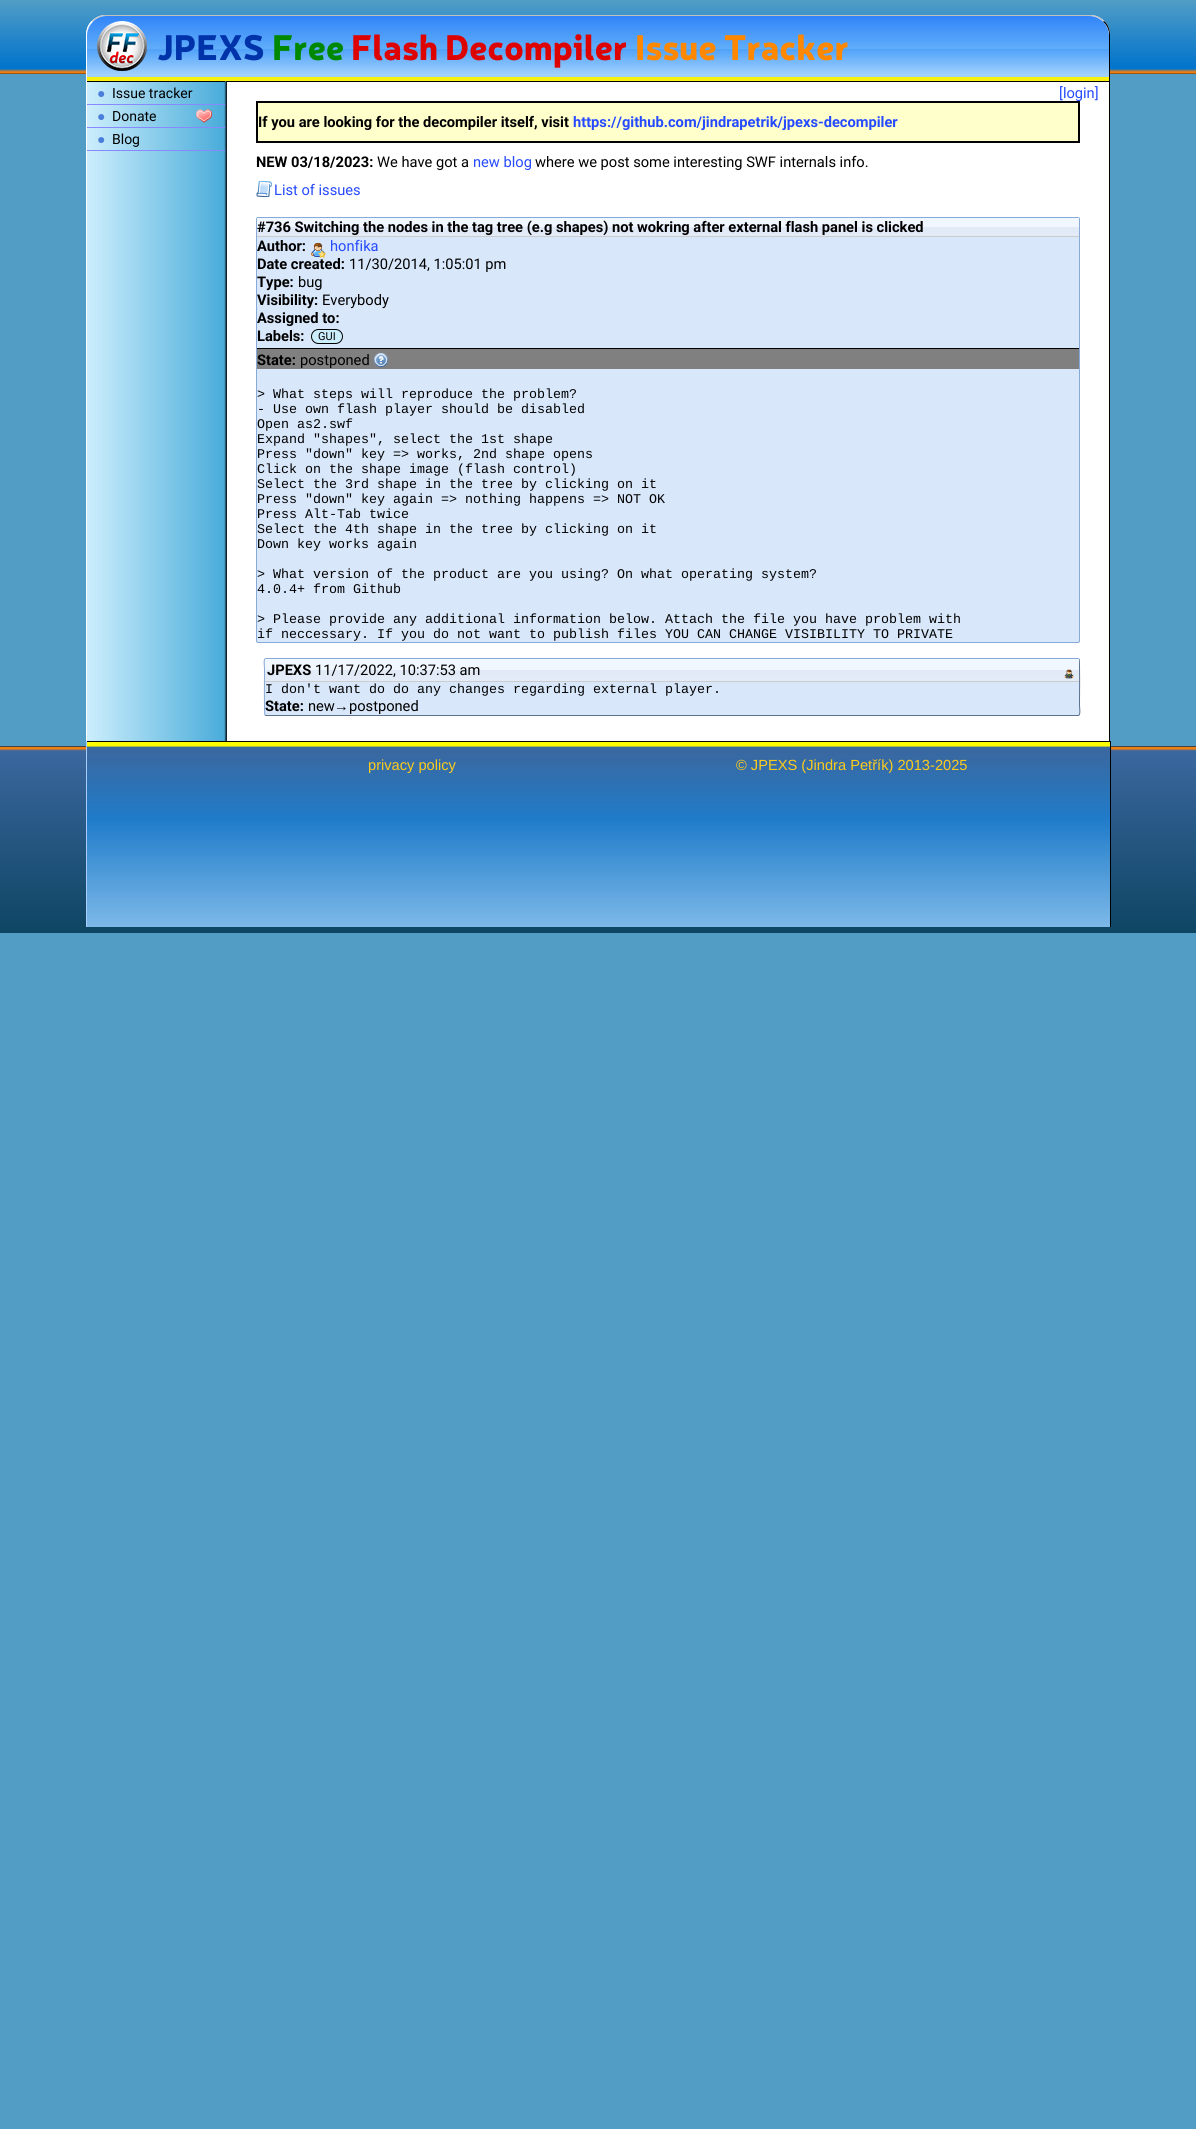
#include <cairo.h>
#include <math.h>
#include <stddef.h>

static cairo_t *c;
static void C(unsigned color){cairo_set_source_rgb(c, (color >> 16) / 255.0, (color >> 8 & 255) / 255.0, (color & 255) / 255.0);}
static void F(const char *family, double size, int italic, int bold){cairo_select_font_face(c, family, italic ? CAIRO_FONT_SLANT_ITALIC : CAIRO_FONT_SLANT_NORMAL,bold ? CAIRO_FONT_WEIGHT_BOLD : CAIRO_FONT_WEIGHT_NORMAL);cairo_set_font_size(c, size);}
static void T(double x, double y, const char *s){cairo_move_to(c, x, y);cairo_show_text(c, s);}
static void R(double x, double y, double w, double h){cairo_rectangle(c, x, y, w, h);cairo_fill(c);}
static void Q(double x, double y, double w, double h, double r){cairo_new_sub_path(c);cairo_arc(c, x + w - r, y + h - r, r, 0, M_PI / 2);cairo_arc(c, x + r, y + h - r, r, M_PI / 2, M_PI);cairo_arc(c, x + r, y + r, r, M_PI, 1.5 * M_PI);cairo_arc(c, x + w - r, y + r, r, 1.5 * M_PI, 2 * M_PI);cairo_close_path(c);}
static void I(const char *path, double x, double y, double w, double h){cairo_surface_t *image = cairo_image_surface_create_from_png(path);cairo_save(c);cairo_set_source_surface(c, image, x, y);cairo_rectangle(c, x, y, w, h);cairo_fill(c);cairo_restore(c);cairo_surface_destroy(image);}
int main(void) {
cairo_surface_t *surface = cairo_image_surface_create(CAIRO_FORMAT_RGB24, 1196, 2129);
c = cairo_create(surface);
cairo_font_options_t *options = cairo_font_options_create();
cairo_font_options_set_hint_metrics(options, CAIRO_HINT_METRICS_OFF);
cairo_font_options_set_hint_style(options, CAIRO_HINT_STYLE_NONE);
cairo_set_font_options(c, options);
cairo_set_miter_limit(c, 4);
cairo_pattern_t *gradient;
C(0x519dc6);
cairo_paint(c);
gradient = cairo_pattern_create_linear(.5,0,.5,74);
cairo_pattern_add_color_stop_rgba(gradient,0,0.318,0.616,0.776,1);
cairo_pattern_add_color_stop_rgba(gradient,.93,0,0.451,0.8,1);
cairo_pattern_add_color_stop_rgba(gradient,.97,0.925,0.498,0.078,1);
cairo_pattern_add_color_stop_rgba(gradient,.99,0.925,0.498,0.078,1);
cairo_pattern_add_color_stop_rgba(gradient,1,0,0,0,1);
cairo_set_source(c,gradient);
cairo_pattern_destroy(gradient);
R(0,2,1196,72);
C(0xffffff);
cairo_new_path(c);
cairo_move_to(c,106,15);
cairo_line_to(c,1090,15);
cairo_curve_to(c,1101,15,1110,24,1110,35);
cairo_line_to(c,1110,746);
cairo_line_to(c,86,746);
cairo_line_to(c,86,35);
cairo_curve_to(c,86,24,95,15,106,15);
cairo_close_path(c);
cairo_fill(c);
cairo_save(c);
cairo_new_path(c);
cairo_move_to(c,106,15);
cairo_line_to(c,1090,15);
cairo_curve_to(c,1101,15,1110,24,1110,35);
cairo_line_to(c,1110,746);
cairo_line_to(c,86,746);
cairo_line_to(c,86,35);
cairo_curve_to(c,86,24,95,15,106,15);
cairo_close_path(c);
cairo_clip(c);
gradient = cairo_pattern_create_linear(87,381,227,381);
cairo_pattern_add_color_stop_rgba(gradient,0,0.8,0.933,0.988,1);
cairo_pattern_add_color_stop_rgba(gradient,.98,0.29,0.675,0.855,1);
cairo_pattern_add_color_stop_rgba(gradient,1,0,0,0,1);
cairo_set_source(c,gradient);
cairo_pattern_destroy(gradient);
R(87,15,140,726);
cairo_restore(c);
C(0xc0c0c0);
cairo_new_path(c);
cairo_move_to(c,106,15);
cairo_curve_to(c,100,15,96,17,92,21);
cairo_line_to(c,93,22);
cairo_curve_to(c,96,18,101,16,106,16);
cairo_line_to(c,1090,16);
cairo_curve_to(c,1095,16,1100,18,1103,22);
cairo_line_to(c,1104,21);
cairo_curve_to(c,1100,17,1096,15,1090,15);
cairo_close_path(c);
cairo_fill(c);
C(0x000000);
cairo_new_path(c);
cairo_move_to(c,1109,746);
cairo_line_to(c,1110,746);
cairo_line_to(c,1110,35);
cairo_curve_to(c,1110,30,1108,24,1104,21);
cairo_line_to(c,1103,22);
cairo_curve_to(c,1107,25,1109,30,1109,35);
cairo_close_path(c);
cairo_fill(c);
C(0xffffff);
cairo_new_path(c);
cairo_move_to(c,86,746);
cairo_line_to(c,87,746);
cairo_line_to(c,87,35);
cairo_curve_to(c,87,30,89,25,93,22);
cairo_line_to(c,92,21);
cairo_curve_to(c,88,24,86,30,86,35);
cairo_close_path(c);
cairo_fill(c);
gradient = cairo_pattern_create_linear(598,16,598,81);
cairo_pattern_add_color_stop_rgba(gradient,0,0.192,0.518,0.976,1);
cairo_pattern_add_color_stop_rgba(gradient,.5,0.376,0.678,0.98,1);
cairo_pattern_add_color_stop_rgba(gradient,.51,0.314,0.635,0.98,1);
cairo_pattern_add_color_stop_rgba(gradient,.9,0.627,0.816,0.988,1);
cairo_pattern_add_color_stop_rgba(gradient,.93,0.627,0.816,0.988,1);
cairo_pattern_add_color_stop_rgba(gradient,.94,0.976,0.949,0.067,1);
cairo_set_source(c,gradient);
cairo_pattern_destroy(gradient);
cairo_new_path(c);
cairo_move_to(c,107,16);
cairo_line_to(c,1089,16);
cairo_curve_to(c,1100,16,1109,25,1109,36);
cairo_line_to(c,1109,81);
cairo_line_to(c,87,81);
cairo_line_to(c,87,36);
cairo_curve_to(c,87,25,96,16,107,16);
cairo_close_path(c);
cairo_fill(c);
I("1.png",97,21,50,50);
F("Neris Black",35,0,0);
C(0x0033aa);
T(157,60,"JPEXS");
C(0x008800);
T(272,60,"Free");
C(0xde0303);
T(351,60,"Flash Decompiler");
C(0xff8800);
T(635,60,"Issue Tracker");
C(0x000000);
R(87,81,138,1);
C(0x8888ff);
R(87,104,138,1);
F("Liberation Sans",14,0,0);
C(0x4b7eda);
T(97,98,"●");
F("Roboto",14,0,0);
C(0x000000);
T(112,98,"Issue tracker");
C(0x8888ff);
R(87,127,138,1);
F("Liberation Sans",14,0,0);
C(0x4b7eda);
T(97,121,"●");
F("Roboto",14,0,0);
C(0x000000);
T(112,121,"Donate");
I("2.png",196,109,16,14);
C(0x8888ff);
R(87,150,138,1);
F("Liberation Sans",14,0,0);
C(0x4b7eda);
T(97,144,"●");
F("Roboto",14,0,0);
C(0x000000);
T(112,144,"Blog");
R(227,81,882,1);
C(0xffffcc);
cairo_rectangle(c,257,102,822,40);
cairo_fill_preserve(c);
C(0x000000);
cairo_stroke(c);
F("Roboto",14.65,0,1);
T(258,127,"If you are looking for the decompiler itself, visit");
C(0x254aff);
T(573,127,"https://github.com/jindrapetrik/jpexs-decompiler");
C(0x000000);
T(256,167,"NEW 03/18/2023:");
F("Roboto",14.65,0,0);
T(377,167,"We have got a");
C(0x254aff);
T(473,167,"new blog");
C(0x000000);
T(535,167,"where we post some interesting SWF internals info.");
I("3.png",256,181,16,16);
C(0x254aff);
T(274,195,"List of issues");
C(0xd9e7fa);
Q(256.5,217.5,823,425,1.5);
cairo_fill_preserve(c);
C(0x88aad8);
cairo_set_line_width(c,1);
cairo_stroke(c);
gradient = cairo_pattern_create_linear(668,218,668,236);
cairo_pattern_add_color_stop_rgba(gradient,0,0.945,0.969,0.996,1);
cairo_pattern_add_color_stop_rgba(gradient,.5,0.945,0.969,0.996,1);
cairo_pattern_add_color_stop_rgba(gradient,.5,0.882,0.918,0.965,1);
cairo_pattern_add_color_stop_rgba(gradient,1,0.886,0.922,0.969,1);
cairo_set_source(c,gradient);
cairo_pattern_destroy(gradient);
R(257,218,822,18);
C(0xcccccc);
R(257,236,822,1);
F("Roboto",14.65,0,1);
C(0x000000);
T(257,232,"#736 Switching the nodes in the tag tree (e.g shapes) not wokring after external flash panel is clicked");
T(257,251,"Author:");
I("4.png",311,243,15,15);
F("Roboto",14.65,0,0);
C(0x254aff);
T(330,251,"honfika");
F("Roboto",14.65,0,1);
C(0x000000);
T(257,269,"Date created:");
F("Roboto",14.65,0,0);
T(349,269,"11/30/2014, 1:05:01 pm");
F("Roboto",14.65,0,1);
T(257,287,"Type:");
F("Roboto",14.65,0,0);
T(298,287,"bug");
F("Roboto",14.65,0,1);
T(257,305,"Visibility:");
F("Roboto",14.65,0,0);
T(322,305,"Everybody");
F("Roboto",14.65,0,1);
T(257,323,"Assigned to:");
T(257,341,"Labels:");
C(0xcceefc);
Q(311.5,329.5,31,14,7);
cairo_fill_preserve(c);
C(0x000000);
cairo_stroke(c);
F("Roboto",11,0,0);
T(318,340,"GUI");
C(0x808080);
R(257,349,822,20);
C(0x000000);
R(257,348,822,1);
F("Roboto",14.65,0,1);
T(257,365,"State:");
F("Roboto",14.65,0,0);
T(300,365,"postponed");
I("5.png",374,353,14,14);
F("Liberation Mono",13.33,0,0);
T(257,398,"> What steps will reproduce the problem?");
T(257,413,"- Use own flash player should be disabled");
T(257,428,"Open as2.swf");
T(257,443,"Expand \"shapes\", select the 1st shape");
T(257,458,"Press \"down\" key => works, 2nd shape opens");
T(257,473,"Click on the shape image (flash control)");
T(257,488,"Select the 3rd shape in the tree by clicking on it");
T(257,503,"Press \"down\" key again => nothing happens => NOT OK");
T(257,518,"Press Alt-Tab twice");
T(257,533,"Select the 4th shape in the tree by clicking on it");
T(257,548,"Down key works again");
T(257,578,"> What version of the product are you using? On what operating system?");
T(257,593,"4.0.4+ from Github");
T(257,623,"> Please provide any additional information below. Attach the file you have problem with");
T(257,638,"if neccessary. If you do not want to publish files YOU CAN CHANGE VISIBILITY TO PRIVATE");
C(0xd9e7fa);
Q(264,658,816,58,2);
cairo_fill(c);
cairo_new_path(c);
cairo_move_to(c,1079,659);
cairo_curve_to(c,1080,660,1079.5,700,1079.5,705);
cairo_curve_to(c,1079.5,708,1081,715.5,1078,715.5);
cairo_line_to(c,266,715.5);
cairo_line_to(c,265,715);
C(0x5b7190);
cairo_stroke(c);
cairo_new_path(c);
cairo_move_to(c,265,715);
cairo_curve_to(c,264,714,264.5,674,264.5,669);
cairo_curve_to(c,264.5,666,263,658.5,266,658.5);
cairo_line_to(c,1078,658.5);
cairo_line_to(c,1079,659);
C(0x88aad8);
cairo_stroke(c);
gradient = cairo_pattern_create_linear(672,659,672,681);
cairo_pattern_add_color_stop_rgba(gradient,0,0.945,0.969,0.996,1);
cairo_pattern_add_color_stop_rgba(gradient,.5,0.945,0.969,0.996,1);
cairo_pattern_add_color_stop_rgba(gradient,.5,0.882,0.918,0.965,1);
cairo_pattern_add_color_stop_rgba(gradient,1,0.886,0.922,0.969,1);
cairo_set_source(c,gradient);
cairo_pattern_destroy(gradient);
R(265,659,814,22);
C(0xcccccc);
R(265,681,814,1);
F("Roboto",14.65,0,1);
C(0x000000);
T(267,675,"JPEXS");
F("Roboto",14.65,0,0);
T(315,675,"11/17/2022, 10:37:53 am");
I("6.png",1064,669,10,10);
F("Liberation Mono",13.33,0,0);
T(265,693,"I don't want do do any changes regarding external player.");
F("Roboto",14.65,0,1);
T(265,711,"State:");
F("Roboto",14.65,0,0);
T(308,711,"new");
F("Liberation Sans",14.65,0,0);
T(334,711,"→");
F("Roboto",14.65,0,0);
T(349,711,"postponed");
C(0x254aff);
T(1059,98,"[login]");
gradient = cairo_pattern_create_linear(598,747,598,933);
cairo_pattern_add_color_stop_rgba(gradient,.01,0.925,0.498,0.078,1);
cairo_pattern_add_color_stop_rgba(gradient,.02,0.231,0.404,0.62,1);
cairo_pattern_add_color_stop_rgba(gradient,1,0.055,0.271,0.388,1);
cairo_set_source(c,gradient);
cairo_pattern_destroy(gradient);
R(0,747,1196,186);
C(0x444444);
R(0,746,1196,1);
gradient = cairo_pattern_create_linear(599,742,599,927);
cairo_pattern_add_color_stop_rgba(gradient,.02,1,1,0,1);
cairo_pattern_add_color_stop_rgba(gradient,.03,0.231,0.404,0.62,1);
cairo_pattern_add_color_stop_rgba(gradient,.42,0.125,0.486,0.792,1);
cairo_pattern_add_color_stop_rgba(gradient,1,0.49,0.725,0.91,1);
cairo_set_source(c,gradient);
cairo_pattern_destroy(gradient);
R(87,742,1023,185);
C(0x000000);
R(86,741,1025,1);
R(1110,741,1,186);
C(0xaaccff);
R(86,741,1,186);
F("Liberation Sans",14.65,0,0);
C(0xfdcb1c);
T(368,770,"privacy policy");
T(736,770,"© JPEXS (Jindra Petřík) 2013-2025");
cairo_surface_write_to_png(surface, "o.png");
cairo_font_options_destroy(options);
cairo_destroy(c);
cairo_surface_destroy(surface);
return 0;
}
